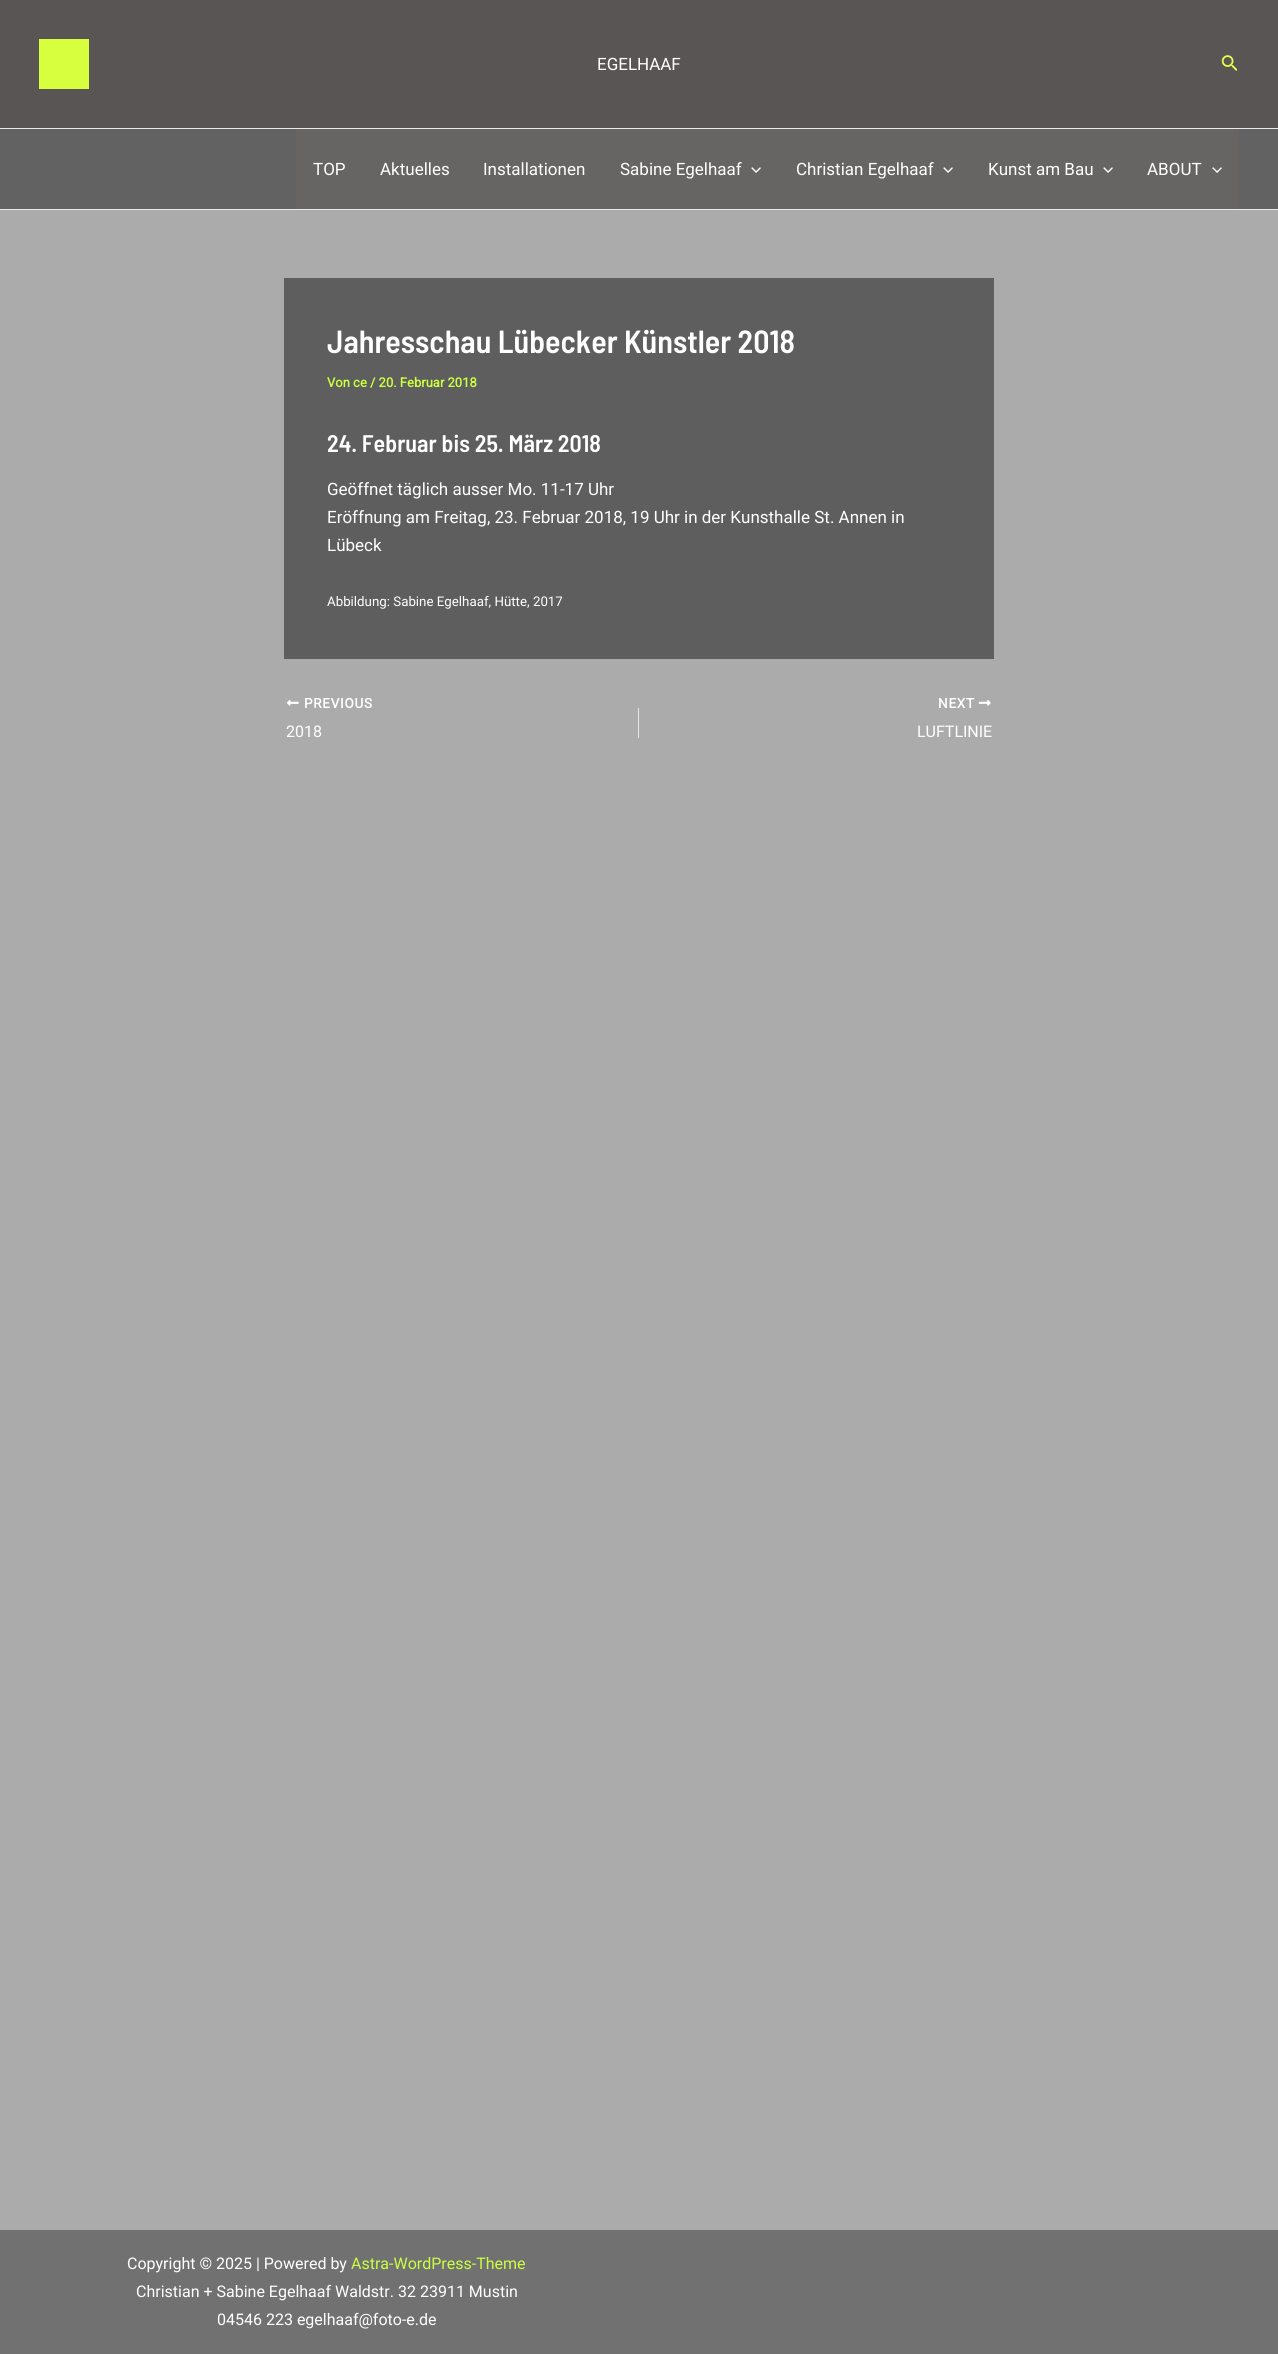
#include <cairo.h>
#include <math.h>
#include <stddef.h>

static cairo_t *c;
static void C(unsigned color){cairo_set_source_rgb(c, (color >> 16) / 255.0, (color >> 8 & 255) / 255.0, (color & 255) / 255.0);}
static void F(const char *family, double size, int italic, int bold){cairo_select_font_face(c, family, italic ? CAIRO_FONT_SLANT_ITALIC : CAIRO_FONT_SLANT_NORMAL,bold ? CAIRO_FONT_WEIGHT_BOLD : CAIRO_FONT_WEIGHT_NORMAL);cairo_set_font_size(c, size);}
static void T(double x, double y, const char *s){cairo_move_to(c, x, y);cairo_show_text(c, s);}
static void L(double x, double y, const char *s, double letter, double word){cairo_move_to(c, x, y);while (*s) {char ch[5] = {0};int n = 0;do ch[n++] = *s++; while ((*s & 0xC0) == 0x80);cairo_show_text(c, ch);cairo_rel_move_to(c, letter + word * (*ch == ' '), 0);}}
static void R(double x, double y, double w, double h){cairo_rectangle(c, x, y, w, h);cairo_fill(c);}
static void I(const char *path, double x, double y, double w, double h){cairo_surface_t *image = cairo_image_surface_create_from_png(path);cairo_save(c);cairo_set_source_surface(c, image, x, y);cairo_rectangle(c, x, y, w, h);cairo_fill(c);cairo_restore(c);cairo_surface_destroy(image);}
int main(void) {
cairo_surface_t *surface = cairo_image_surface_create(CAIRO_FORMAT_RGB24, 1278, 2354);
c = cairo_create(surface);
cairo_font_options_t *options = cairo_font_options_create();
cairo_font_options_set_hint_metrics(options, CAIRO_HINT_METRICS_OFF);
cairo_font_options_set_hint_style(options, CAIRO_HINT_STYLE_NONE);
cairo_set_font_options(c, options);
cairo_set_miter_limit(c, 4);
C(0xababac);
cairo_paint(c);
C(0x5a5555);
R(0,0,1278,128);
C(0xeaeaea);
R(0,128,1278,1);
C(0xd8ff3d);
R(39,39,50,50);
F("Roboto",17,0,0);
C(0xffffff);
T(597,70,"EGELHAAF");
I("1.png",1221,55,16,16);
C(0x626262);
R(0,129,1278,80);
C(0xeaeaea);
R(0,209,1278,1);
C(0x676464);
R(296,129,943,80);
C(0xffffff);
T(313,175,"TOP");
T(380,175,"Aktuelles");
T(483,175,"Installationen");
T(620,175,"Sabine Egelhaaf");
I("2.png",751,167,10,6);
T(796,175,"Christian Egelhaaf");
I("2.png",943,167,10,6);
T(988,175,"Kunst am Bau");
I("2.png",1103,167,10,6);
T(1147,175,"ABOUT");
I("2.png",1212,167,10,6);
C(0x5e5e5e);
R(284,278,710,381);
F("Barlow Semi Condensed SemiBold",32,0,0);
C(0xffffff);
T(327,353,"Jahresschau Lübecker Künstler 2018");
F("Roboto",13,0,1);
C(0xccfe42);
T(327,387,"Von ce / 20. Februar 2018");
F("Barlow Semi Condensed SemiBold",24,0,0);
C(0xffffff);
T(327,452,"24. Februar bis 25. März 2018");
F("Roboto",17,0,0);
T(327,495,"Geöffnet täglich ausser Mo. 11-17 Uhr");
T(327,523,"Eröffnung am Freitag, 23. Februar 2018, 19 Uhr in der Kunsthalle St. Annen in");
T(327,551,"Lübeck");
F("Roboto",13.3,0,0);
T(327,606,"Abbildung: Sabine Egelhaaf, Hütte, 2017");
I("3.png",286,699,13,7);
F("Roboto",13.5,0,1);
L(304,708,"PREVIOUS",.75,0);
F("Roboto",16,0,0);
T(286,737,"2018");
C(0xe1e8ed);
R(638,708,1,30);
F("Roboto",13.5,0,1);
C(0xffffff);
L(938,708,"NEXT",.75,0);
I("4.png",978,700,13,6);
F("Roboto",16,0,0);
T(917,737,"LUFTLINIE");
C(0x717171);
R(0,2230,1278,124);
C(0xffffff);
T(127,2269,"Copyright © 2025 | Powered by");
C(0xccfe42);
T(351,2269,"Astra-WordPress-Theme");
C(0xffffff);
T(136,2297,"Christian + Sabine Egelhaaf Waldstr. 32 23911 Mustin");
T(217,2325,"04546 223 egelhaaf@foto-e.de");
cairo_surface_write_to_png(surface, "o.png");
cairo_font_options_destroy(options);
cairo_destroy(c);
cairo_surface_destroy(surface);
return 0;
}
